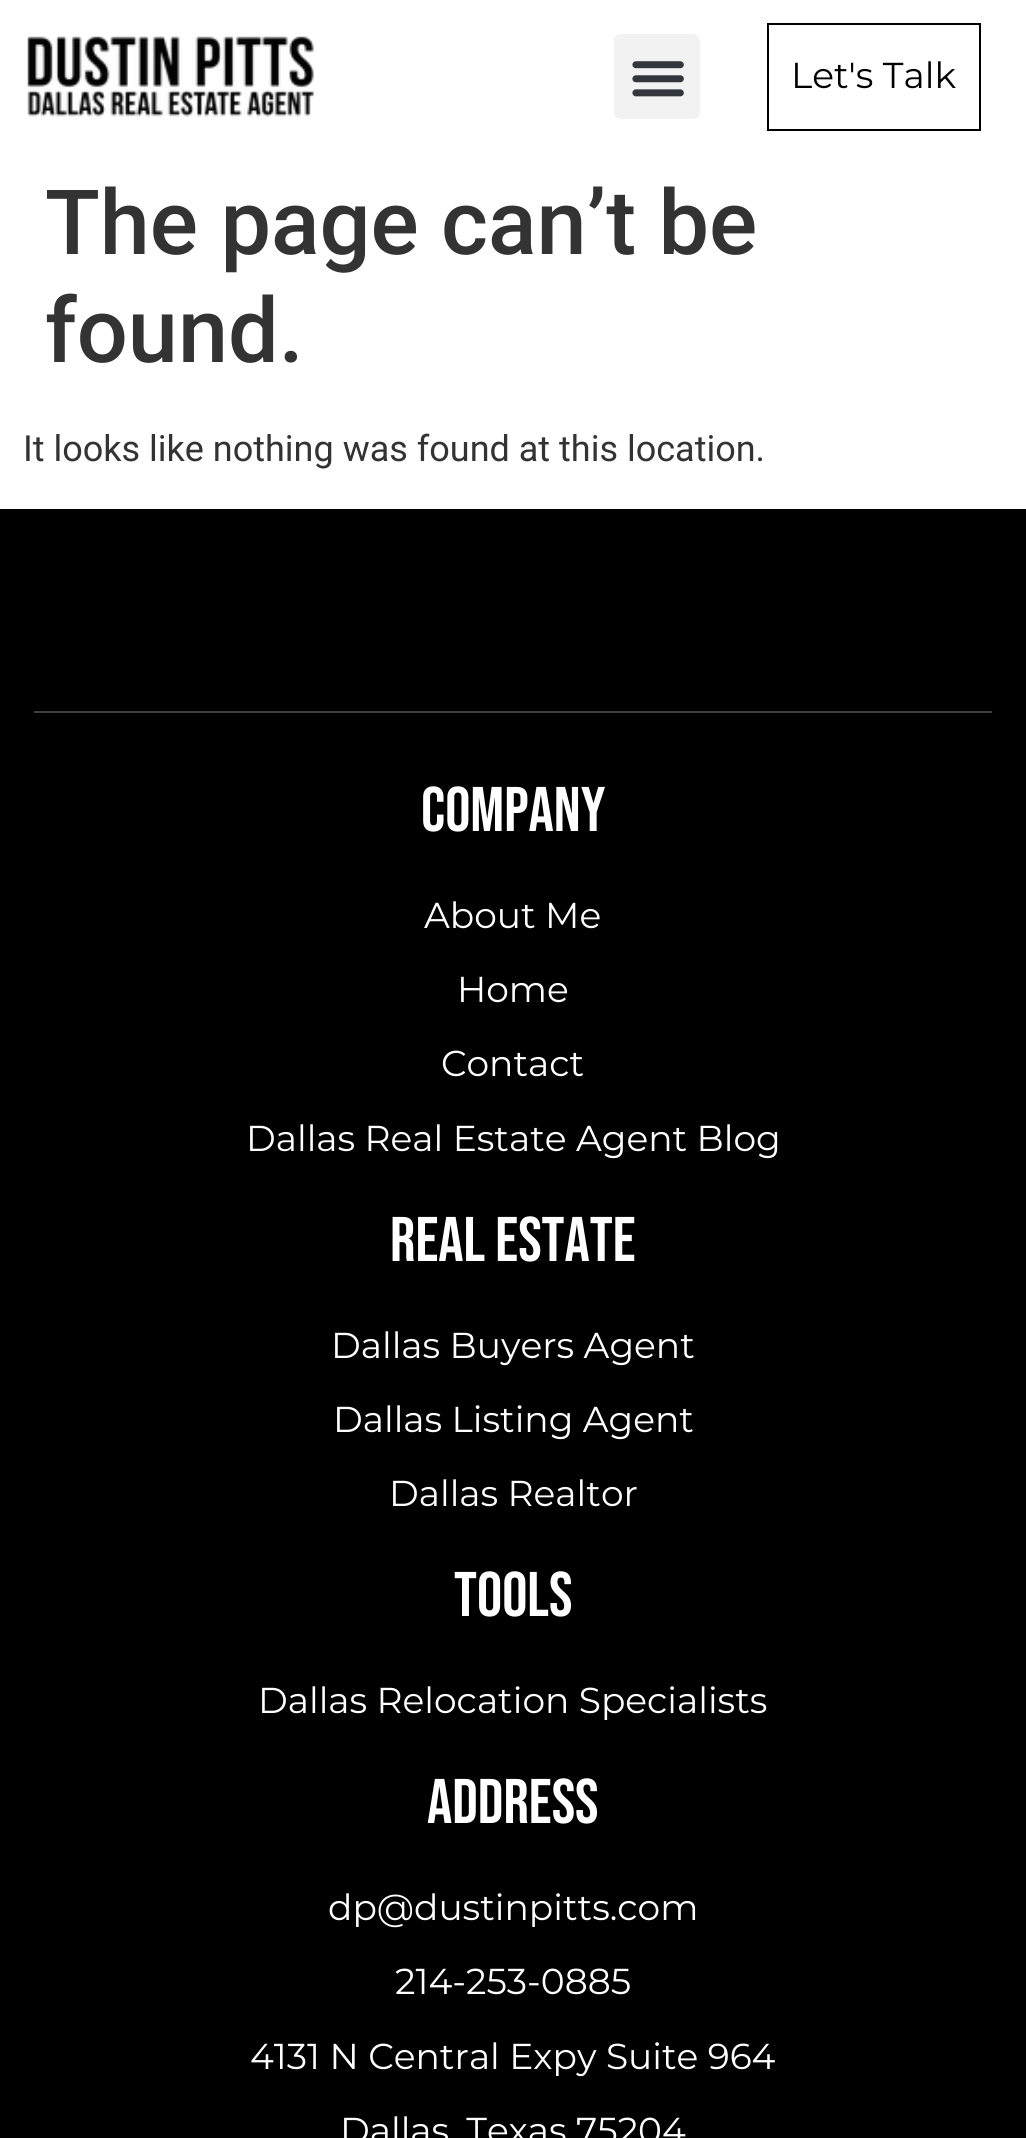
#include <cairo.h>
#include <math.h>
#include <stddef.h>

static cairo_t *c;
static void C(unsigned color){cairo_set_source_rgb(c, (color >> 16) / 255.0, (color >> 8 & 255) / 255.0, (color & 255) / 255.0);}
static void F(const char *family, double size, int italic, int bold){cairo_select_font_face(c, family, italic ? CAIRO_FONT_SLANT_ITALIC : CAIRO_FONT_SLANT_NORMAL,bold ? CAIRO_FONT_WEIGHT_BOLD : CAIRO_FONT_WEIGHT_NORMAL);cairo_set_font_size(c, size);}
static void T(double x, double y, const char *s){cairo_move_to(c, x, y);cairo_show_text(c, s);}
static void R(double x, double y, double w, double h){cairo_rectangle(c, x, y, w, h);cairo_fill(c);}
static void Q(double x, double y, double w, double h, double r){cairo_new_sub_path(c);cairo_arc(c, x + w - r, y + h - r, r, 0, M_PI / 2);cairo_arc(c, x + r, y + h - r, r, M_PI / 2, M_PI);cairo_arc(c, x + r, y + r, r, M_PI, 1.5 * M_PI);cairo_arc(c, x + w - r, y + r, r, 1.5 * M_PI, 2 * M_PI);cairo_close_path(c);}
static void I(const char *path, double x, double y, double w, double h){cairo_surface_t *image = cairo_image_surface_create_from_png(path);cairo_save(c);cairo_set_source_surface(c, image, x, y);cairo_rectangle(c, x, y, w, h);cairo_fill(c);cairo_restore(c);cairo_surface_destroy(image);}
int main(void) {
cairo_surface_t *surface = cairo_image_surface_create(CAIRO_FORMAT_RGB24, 1026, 2138);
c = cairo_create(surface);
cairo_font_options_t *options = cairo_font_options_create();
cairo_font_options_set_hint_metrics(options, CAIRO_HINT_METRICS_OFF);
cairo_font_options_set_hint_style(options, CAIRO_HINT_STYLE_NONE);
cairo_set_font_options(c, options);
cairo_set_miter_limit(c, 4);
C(0xffffff);
cairo_paint(c);
I("1.png",27,36,287,81);
C(0xf2f2f2);
Q(614,34,86,85,7);
cairo_fill(c);
I("2.png",632,61,52,36);
cairo_rectangle(c,768,24,212,106);
C(0x000000);
cairo_stroke(c);
F("Montserrat",36,0,0);
T(791,88,"Let's Talk");
F("Roboto Medium",90,0,0);
C(0x333333);
T(45,254,"The page can’t be");
T(45,362,"found.");
F("Roboto",36,0,0);
T(23,461,"It looks like nothing was found at this location.");
C(0x000000);
R(0,509,1026,1629);
C(0x404040);
R(34,711,958,2);
F("Bebas Neue",63,0,0);
C(0xffffff);
T(421,831,"Company");
F("Montserrat",36,0,0);
T(424,928,"About Me");
T(457,1002,"Home");
T(441,1076,"Contact");
T(246,1151,"Dallas Real Estate Agent Blog");
F("Bebas Neue",63,0,0);
T(390,1261,"Real Estate");
F("Montserrat",36,0,0);
T(331,1358,"Dallas Buyers Agent");
T(333,1432,"Dallas Listing Agent");
T(389,1506,"Dallas Realtor");
F("Bebas Neue",63,0,0);
T(454,1616,"Tools");
F("Montserrat",36,0,0);
T(258,1713,"Dallas Relocation Specialists");
F("Bebas Neue",63,0,0);
T(427,1823,"Address");
F("Montserrat",36,0,0);
T(328,1920,"dp@dustinpitts.com");
T(395,1994,"214-253-0885");
T(250,2069,"4131 N Central Expy Suite 964");
T(340,2143,"Dallas, Texas 75204");
cairo_surface_write_to_png(surface, "o.png");
cairo_font_options_destroy(options);
cairo_destroy(c);
cairo_surface_destroy(surface);
return 0;
}
